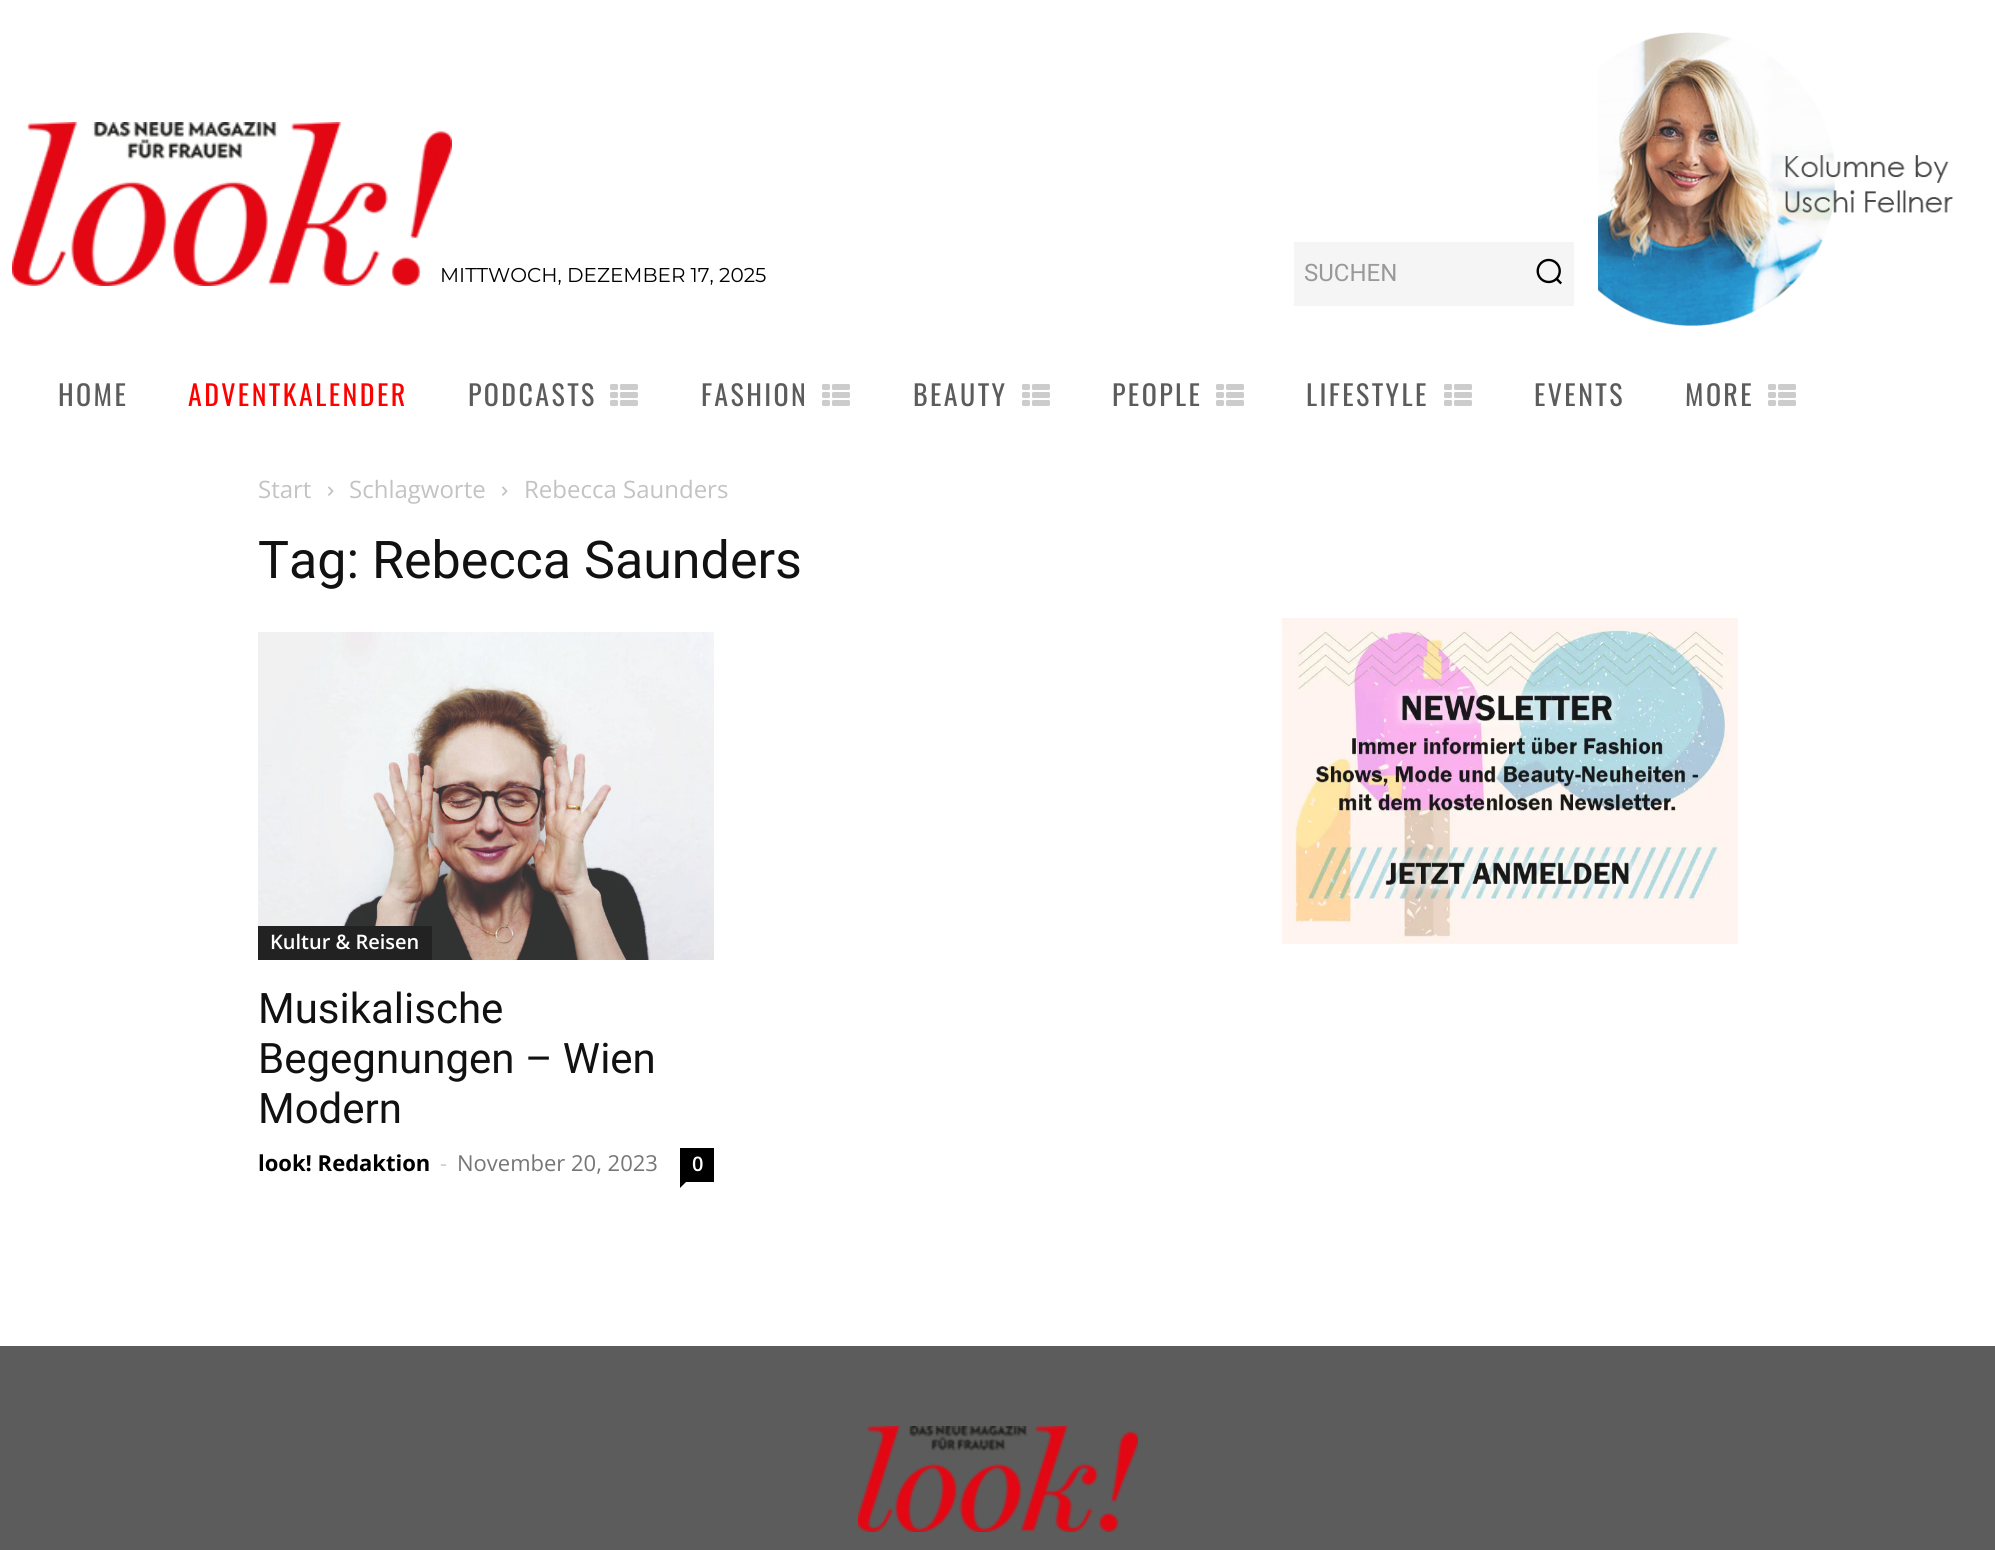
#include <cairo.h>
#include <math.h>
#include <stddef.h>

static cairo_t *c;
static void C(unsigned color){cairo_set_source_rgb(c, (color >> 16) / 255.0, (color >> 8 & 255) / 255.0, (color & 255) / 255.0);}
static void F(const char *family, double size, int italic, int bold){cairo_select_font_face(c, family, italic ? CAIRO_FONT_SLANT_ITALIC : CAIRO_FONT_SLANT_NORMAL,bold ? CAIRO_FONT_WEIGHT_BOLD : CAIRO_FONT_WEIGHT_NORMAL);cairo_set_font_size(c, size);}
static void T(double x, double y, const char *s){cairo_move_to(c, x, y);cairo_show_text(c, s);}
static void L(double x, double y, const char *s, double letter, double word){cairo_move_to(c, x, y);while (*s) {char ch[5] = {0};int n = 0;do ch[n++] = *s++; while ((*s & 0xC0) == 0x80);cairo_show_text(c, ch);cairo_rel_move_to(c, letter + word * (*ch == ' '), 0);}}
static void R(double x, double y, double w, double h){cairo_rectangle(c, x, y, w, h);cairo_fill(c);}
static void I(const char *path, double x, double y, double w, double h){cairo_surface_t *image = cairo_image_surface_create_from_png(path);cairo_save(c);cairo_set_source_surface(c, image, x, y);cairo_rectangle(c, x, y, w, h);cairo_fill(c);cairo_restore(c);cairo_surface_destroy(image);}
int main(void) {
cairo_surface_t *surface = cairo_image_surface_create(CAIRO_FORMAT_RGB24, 1995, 1550);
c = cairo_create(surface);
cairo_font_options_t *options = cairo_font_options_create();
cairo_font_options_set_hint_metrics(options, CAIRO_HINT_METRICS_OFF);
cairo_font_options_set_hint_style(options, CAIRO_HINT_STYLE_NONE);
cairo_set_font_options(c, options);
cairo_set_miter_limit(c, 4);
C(0xffffff);
cairo_paint(c);
I("1.png",12,122,440,164);
F("Montserrat Thin",20,0,0);
C(0x000000);
T(440,282,"MITTWOCH, DEZEMBER 17, 2025");
C(0xf5f5f5);
R(1294,242,280,64);
F("Roboto",24,0,0);
C(0x999999);
T(1304,281,"SUCHEN");
I("2.png",1536,258,26,27);
I("3.png",1598,32,356,294);
F("Oswald",28,0,0);
C(0x5c5c5c);
L(58,406,"HOME",2.4,0);
C(0xff0000);
L(188,406,"ADVENTKALENDER",2.4,0);
C(0x5c5c5c);
L(468,406,"PODCASTS",2.4,0);
I("4.png",610,384,28,22);
L(701,406,"FASHION",2.4,0);
I("4.png",822,384,28,22);
L(913,406,"BEAUTY",2.4,0);
I("4.png",1022,384,28,22);
L(1112,406,"PEOPLE",2.4,0);
I("4.png",1216,384,28,22);
L(1306,406,"LIFESTYLE",2.4,0);
I("4.png",1444,384,28,22);
L(1534,406,"EVENTS",2.4,0);
L(1685,406,"MORE",2.4,0);
I("4.png",1768,384,28,22);
F("Open Sans",24,0,0);
C(0xc3c3c3);
T(258,498,"Start");
I("5.png",328,486,6,10);
T(349,498,"Schlagworte");
I("5.png",502,486,6,10);
T(524,498,"Rebecca Saunders");
F("Roboto",52,0,0);
C(0x111111);
T(258,578,"Tag: Rebecca Saunders");
I("6.png",258,632,456,328);
C(0x222222);
R(258,926,174,34);
F("Open Sans SemiBold",20,0,0);
C(0xffffff);
T(270,949,"Kultur & Reisen");
F("Roboto",42,0,0);
C(0x111111);
T(258,1023,"Musikalische");
T(258,1073,"Begegnungen – Wien");
T(258,1123,"Modern");
F("Open Sans",22,0,1);
C(0x000000);
T(258,1171,"look! Redaktion");
F("Open Sans",22,0,0);
C(0xcccccc);
T(440,1171,"-");
C(0x767676);
T(457,1171,"November 20, 2023");
C(0x000000);
R(680,1148,34,34);
F("Open Sans SemiBold",20,0,0);
C(0xffffff);
T(692,1171,"0");
C(0x000000);
cairo_new_path(c);
cairo_move_to(c,680,1182);
cairo_line_to(c,686,1182);
cairo_line_to(c,680,1188);
cairo_close_path(c);
cairo_fill(c);
I("7.png",1282,618,456,326);
C(0x5c5c5c);
R(0,1346,1995,204);
I("8.png",858,1426,280,106);
cairo_surface_write_to_png(surface, "o.png");
cairo_font_options_destroy(options);
cairo_destroy(c);
cairo_surface_destroy(surface);
return 0;
}
